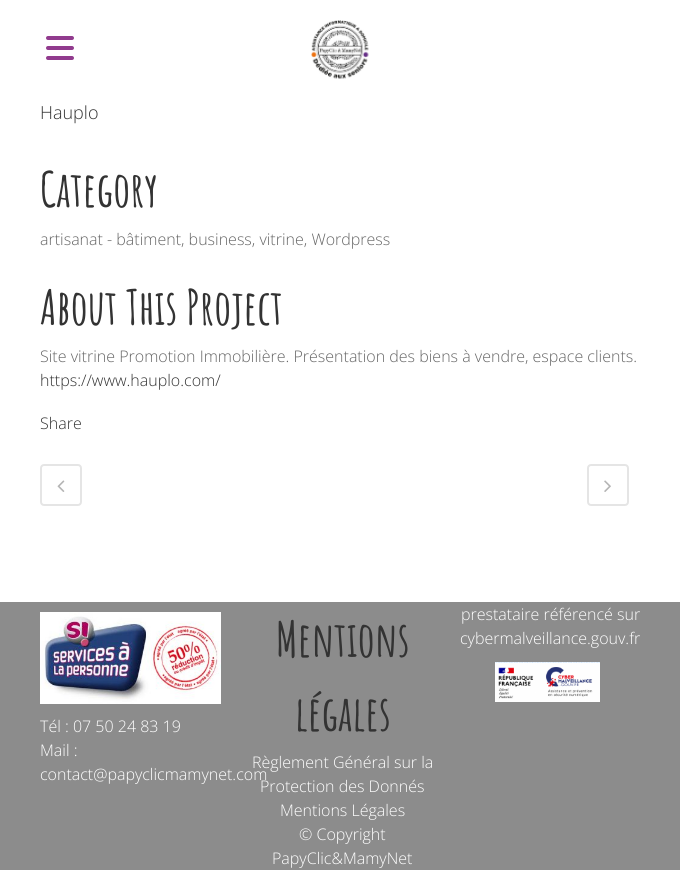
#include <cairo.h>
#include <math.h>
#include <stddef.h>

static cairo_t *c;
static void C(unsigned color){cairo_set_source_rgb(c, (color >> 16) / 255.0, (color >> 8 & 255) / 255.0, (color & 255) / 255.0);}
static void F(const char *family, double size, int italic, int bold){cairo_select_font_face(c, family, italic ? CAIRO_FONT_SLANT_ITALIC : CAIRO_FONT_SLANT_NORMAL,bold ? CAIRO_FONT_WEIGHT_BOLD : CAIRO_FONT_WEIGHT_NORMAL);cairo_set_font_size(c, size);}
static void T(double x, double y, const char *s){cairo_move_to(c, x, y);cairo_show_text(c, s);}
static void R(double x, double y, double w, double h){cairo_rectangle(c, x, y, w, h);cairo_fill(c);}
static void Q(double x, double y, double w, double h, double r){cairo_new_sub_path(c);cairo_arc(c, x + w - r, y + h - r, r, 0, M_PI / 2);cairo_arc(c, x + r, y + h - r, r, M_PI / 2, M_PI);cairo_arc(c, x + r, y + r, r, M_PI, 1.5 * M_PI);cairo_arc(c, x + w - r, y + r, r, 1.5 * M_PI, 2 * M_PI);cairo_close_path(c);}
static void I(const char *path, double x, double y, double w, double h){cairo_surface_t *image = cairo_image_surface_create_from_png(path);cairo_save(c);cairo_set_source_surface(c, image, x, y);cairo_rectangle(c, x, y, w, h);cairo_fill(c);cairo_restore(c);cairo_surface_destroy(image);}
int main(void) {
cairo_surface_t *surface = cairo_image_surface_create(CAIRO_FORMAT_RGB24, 680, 870);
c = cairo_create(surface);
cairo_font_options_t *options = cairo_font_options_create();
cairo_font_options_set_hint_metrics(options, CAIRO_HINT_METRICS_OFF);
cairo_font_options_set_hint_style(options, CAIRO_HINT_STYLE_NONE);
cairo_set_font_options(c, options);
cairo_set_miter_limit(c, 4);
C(0xffffff);
cairo_paint(c);
I("1.png",46,36,28,24);
I("2.png",311,20,58,59);
F("Open Sans Light",18,0,0);
C(0x333333);
T(40,119,"Hauplo");
F("Amatic SC",48,0,1);
T(40,207,"Category");
F("Open Sans Light",16,0,0);
C(0x666666);
T(40,245,"artisanat - bâtiment, business, vitrine, Wordpress");
F("Amatic SC",48,0,1);
C(0x333333);
T(40,325,"About This Project");
F("Open Sans Light",16,0,0);
C(0x666666);
T(40,362,"Site vitrine Promotion Immobilière. Présentation des biens à vendre, espace clients.");
C(0x333333);
T(40,386,"https://www.hauplo.com/");
T(40,429,"Share");
Q(41,465,40,40,3);
C(0xe5e5e5);
cairo_stroke(c);
I("3.png",57,480,8,12);
Q(588,465,40,40,3);
cairo_stroke(c);
I("4.png",604,480,7,12);
C(0x8c8c8c);
R(0,602,680,268);
I("5.png",40,612,181,92);
C(0xffffff);
T(40,732,"Tél : 07 50 24 83 19");
T(40,756,"Mail :");
T(40,780,"contact@papyclicmamynet.com");
F("Amatic SC",48,0,1);
C(0x333333);
T(276,657,"Mentions");
T(295,731,"légales");
F("Open Sans Light",16,0,0);
C(0xffffff);
T(252,768,"Règlement Général sur la");
T(260,792,"Protection des Donnés");
T(280,816,"Mentions Légales");
T(299,840,"© Copyright");
T(272,864,"PapyClic&MamyNet");
T(461,620,"prestataire référencé sur");
T(460,644,"cybermalveillance.gouv.fr");
I("6.png",495,662,105,40);
cairo_surface_write_to_png(surface, "o.png");
cairo_font_options_destroy(options);
cairo_destroy(c);
cairo_surface_destroy(surface);
return 0;
}
